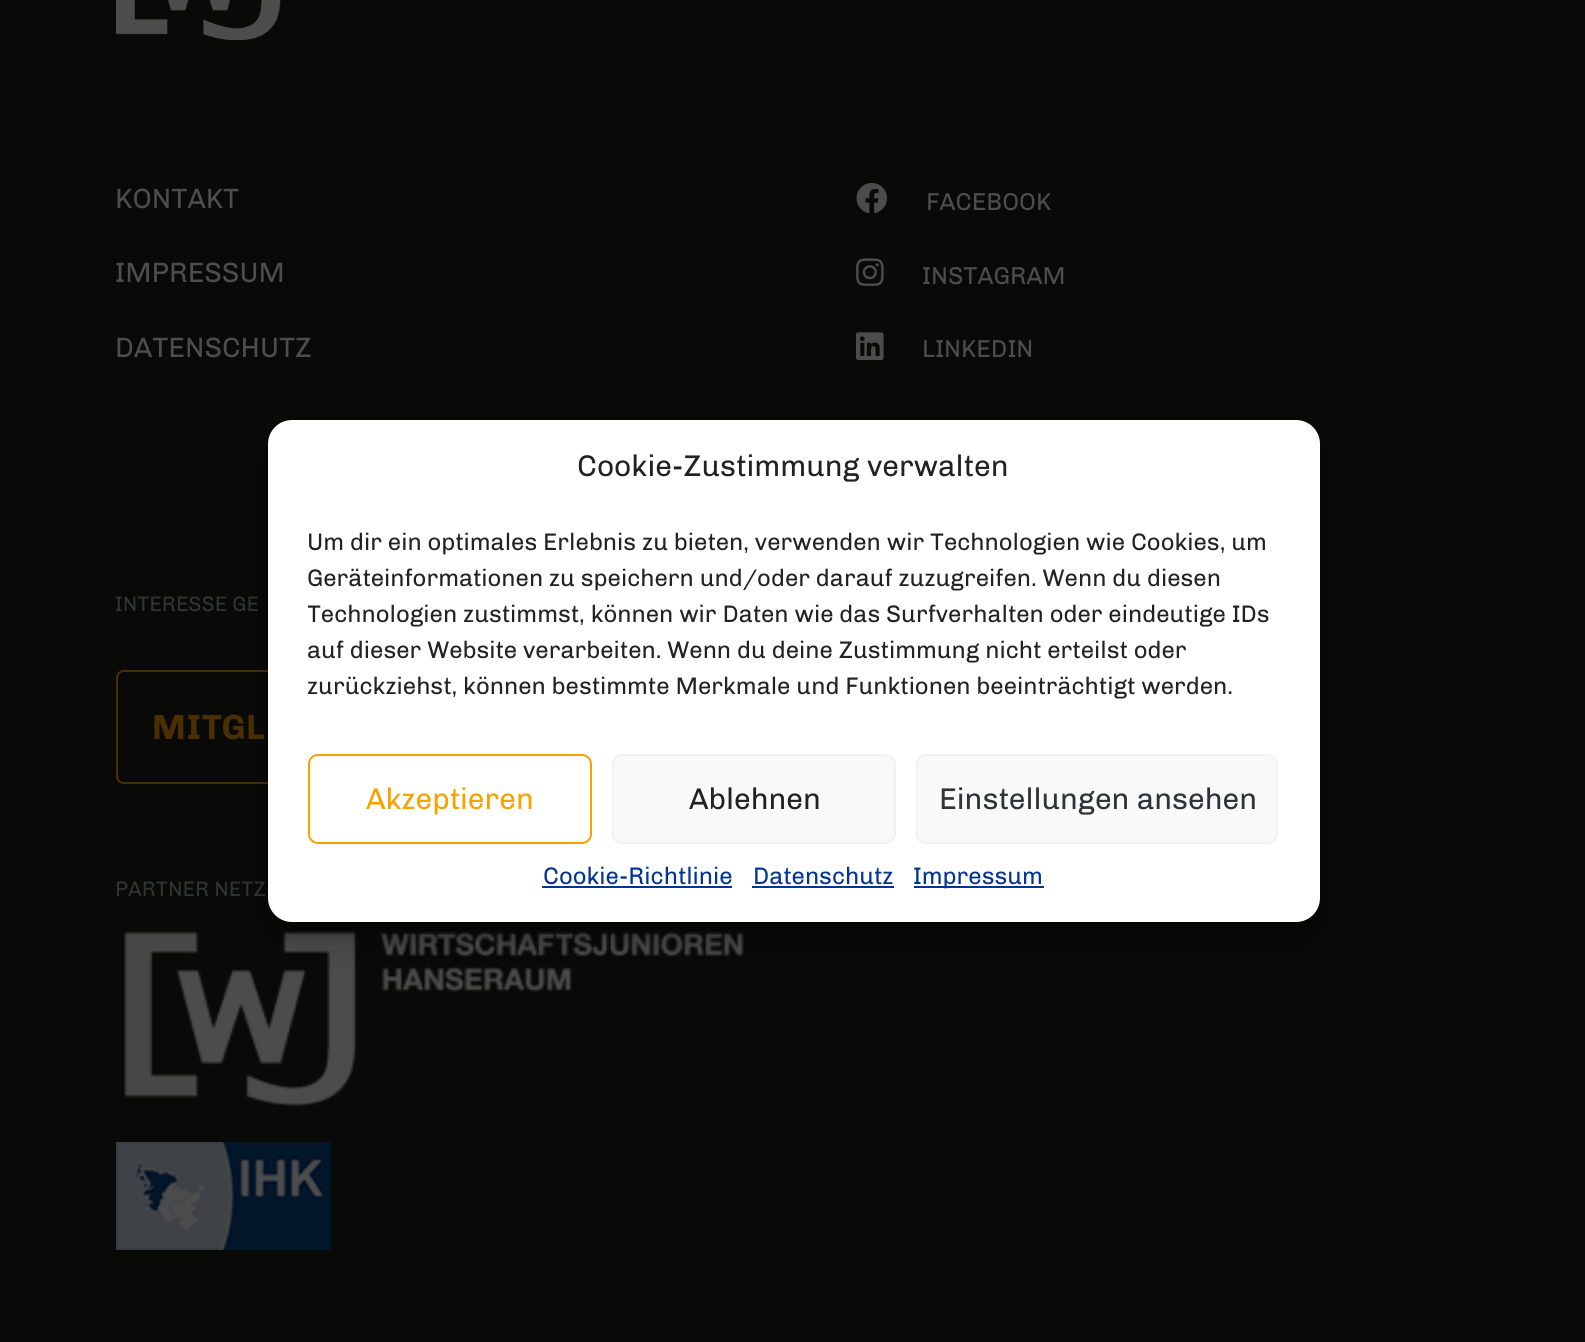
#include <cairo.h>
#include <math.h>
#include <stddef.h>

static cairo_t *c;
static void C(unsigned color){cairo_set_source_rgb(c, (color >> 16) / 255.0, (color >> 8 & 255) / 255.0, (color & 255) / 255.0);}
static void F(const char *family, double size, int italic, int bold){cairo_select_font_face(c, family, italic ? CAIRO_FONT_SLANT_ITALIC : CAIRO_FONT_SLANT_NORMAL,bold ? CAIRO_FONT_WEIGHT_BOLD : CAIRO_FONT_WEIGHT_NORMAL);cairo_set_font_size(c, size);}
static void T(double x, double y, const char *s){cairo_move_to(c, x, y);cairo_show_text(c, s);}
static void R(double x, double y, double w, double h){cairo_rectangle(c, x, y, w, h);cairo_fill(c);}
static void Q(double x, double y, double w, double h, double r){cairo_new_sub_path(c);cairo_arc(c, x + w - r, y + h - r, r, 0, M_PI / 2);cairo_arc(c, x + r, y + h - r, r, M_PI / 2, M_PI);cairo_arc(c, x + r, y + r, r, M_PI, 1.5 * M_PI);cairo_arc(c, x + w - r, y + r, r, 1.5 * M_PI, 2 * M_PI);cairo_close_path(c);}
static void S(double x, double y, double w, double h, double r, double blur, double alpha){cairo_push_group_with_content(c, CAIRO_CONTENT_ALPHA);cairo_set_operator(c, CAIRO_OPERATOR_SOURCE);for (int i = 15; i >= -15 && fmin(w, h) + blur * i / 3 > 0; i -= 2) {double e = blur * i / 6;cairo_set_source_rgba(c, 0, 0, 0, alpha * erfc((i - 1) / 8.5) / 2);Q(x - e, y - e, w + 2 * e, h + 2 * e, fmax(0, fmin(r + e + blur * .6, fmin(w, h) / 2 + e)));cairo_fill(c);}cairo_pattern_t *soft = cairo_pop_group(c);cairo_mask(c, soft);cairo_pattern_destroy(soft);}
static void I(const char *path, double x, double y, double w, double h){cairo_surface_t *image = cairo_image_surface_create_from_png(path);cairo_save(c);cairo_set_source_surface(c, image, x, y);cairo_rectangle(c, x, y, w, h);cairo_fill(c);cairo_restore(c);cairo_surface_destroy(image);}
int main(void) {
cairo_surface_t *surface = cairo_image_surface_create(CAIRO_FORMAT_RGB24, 1585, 1342);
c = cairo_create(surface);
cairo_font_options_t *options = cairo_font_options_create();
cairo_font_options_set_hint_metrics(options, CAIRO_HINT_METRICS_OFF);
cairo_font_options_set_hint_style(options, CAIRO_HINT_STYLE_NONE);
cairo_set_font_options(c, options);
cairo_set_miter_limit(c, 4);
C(0x090908);
cairo_paint(c);
I("1.png",116,0,165,40);
F("Chivo",28,0,0);
C(0x4d4d4d);
T(115,208,"KONTAKT");
T(115,282,"IMPRESSUM");
T(115,357,"DATENSCHUTZ");
I("2.png",856,182,31,32);
F("Chivo",24.5,0,0);
T(926,210,"FACEBOOK");
I("3.png",856,258,28,28);
T(922,284,"INSTAGRAM");
I("4.png",856,332,28,28);
T(922,357,"LINKEDIN");
F("Chivo",21,0,0);
C(0x313334);
T(115,611,"INTERESSE GE");
Q(117,671,400,112,7);
C(0x4a3001);
cairo_stroke(c);
F("Chivo",35,0,1);
T(152,739,"MITGL");
F("Chivo",21,0,0);
C(0x313334);
T(115,896,"PARTNER NETZ");
I("5.png",124,931,621,175);
I("6.png",116,1142,217,108);
C(0x000000);
S(268,432,1052,502,24,6,.23);
S(268,440,1052,502,24,20,.19);
C(0xffffff);
Q(268,420,1052,502,24);
cairo_fill(c);
F("Chivo",30,0,0);
C(0x222222);
T(577,476,"Cookie-Zustimmung verwalten");
F("Chivo",24,0,0);
T(307,550,"Um dir ein optimales Erlebnis zu bieten, verwenden wir Technologien wie Cookies, um");
T(307,586,"Geräteinformationen zu speichern und/oder darauf zuzugreifen. Wenn du diesen");
cairo_save(c);
cairo_rectangle(c,308,524,972,190);
cairo_clip(c);
T(307,622,"Technologien zustimmst, können wir Daten wie das Surfverhalten oder eindeutige IDs");
cairo_restore(c);
T(307,658,"auf dieser Website verarbeiten. Wenn du deine Zustimmung nicht erteilst oder");
T(307,694,"zurückziehst, können bestimmte Merkmale und Funktionen beeinträchtigt werden.");
Q(309,755,282,88,9);
C(0xf8a102);
cairo_stroke(c);
F("Chivo",30,0,0);
T(366,809,"Akzeptieren");
C(0xf9f9f9);
Q(613,755,282,88,9);
cairo_fill_preserve(c);
C(0xf2f2f2);
cairo_stroke(c);
C(0x222222);
T(689,809,"Ablehnen");
C(0xf9f9f9);
Q(917,755,360,88,9);
cairo_fill_preserve(c);
C(0xf2f2f2);
cairo_stroke(c);
C(0x313334);
T(939,809,"Einstellungen ansehen");
F("Chivo",24,0,0);
C(0x013493);
T(543,884,"Cookie-Richtlinie");
R(542,886,190,2);
T(753,884,"Datenschutz");
R(752,886,142,2);
R(914,886,130,2);
T(913,884,"Impressum");
cairo_surface_write_to_png(surface, "o.png");
cairo_font_options_destroy(options);
cairo_destroy(c);
cairo_surface_destroy(surface);
return 0;
}
